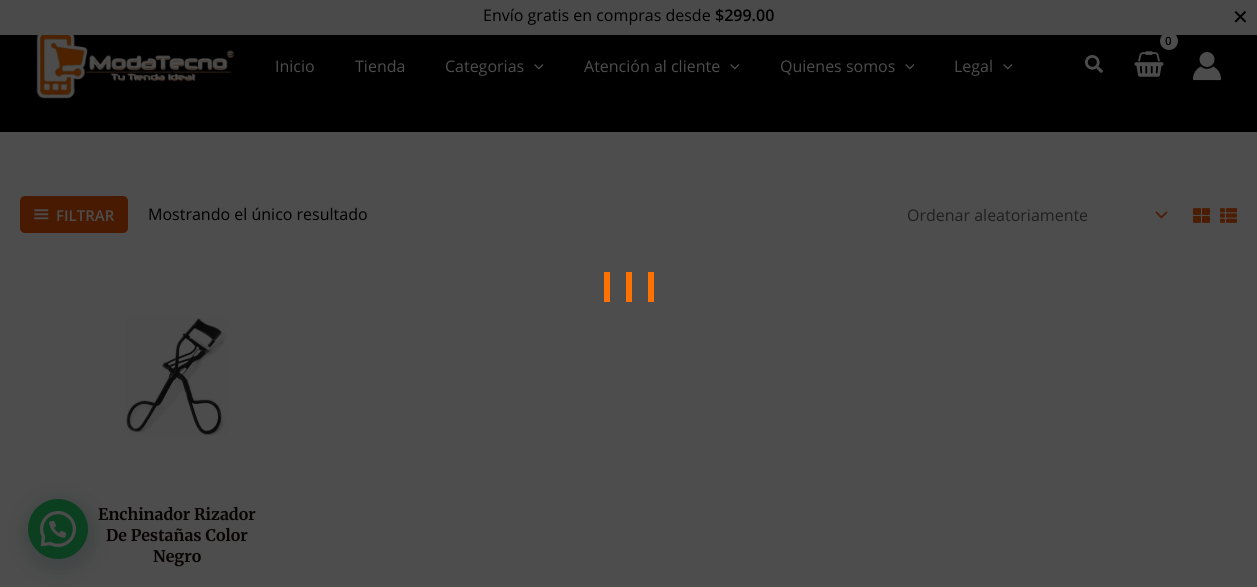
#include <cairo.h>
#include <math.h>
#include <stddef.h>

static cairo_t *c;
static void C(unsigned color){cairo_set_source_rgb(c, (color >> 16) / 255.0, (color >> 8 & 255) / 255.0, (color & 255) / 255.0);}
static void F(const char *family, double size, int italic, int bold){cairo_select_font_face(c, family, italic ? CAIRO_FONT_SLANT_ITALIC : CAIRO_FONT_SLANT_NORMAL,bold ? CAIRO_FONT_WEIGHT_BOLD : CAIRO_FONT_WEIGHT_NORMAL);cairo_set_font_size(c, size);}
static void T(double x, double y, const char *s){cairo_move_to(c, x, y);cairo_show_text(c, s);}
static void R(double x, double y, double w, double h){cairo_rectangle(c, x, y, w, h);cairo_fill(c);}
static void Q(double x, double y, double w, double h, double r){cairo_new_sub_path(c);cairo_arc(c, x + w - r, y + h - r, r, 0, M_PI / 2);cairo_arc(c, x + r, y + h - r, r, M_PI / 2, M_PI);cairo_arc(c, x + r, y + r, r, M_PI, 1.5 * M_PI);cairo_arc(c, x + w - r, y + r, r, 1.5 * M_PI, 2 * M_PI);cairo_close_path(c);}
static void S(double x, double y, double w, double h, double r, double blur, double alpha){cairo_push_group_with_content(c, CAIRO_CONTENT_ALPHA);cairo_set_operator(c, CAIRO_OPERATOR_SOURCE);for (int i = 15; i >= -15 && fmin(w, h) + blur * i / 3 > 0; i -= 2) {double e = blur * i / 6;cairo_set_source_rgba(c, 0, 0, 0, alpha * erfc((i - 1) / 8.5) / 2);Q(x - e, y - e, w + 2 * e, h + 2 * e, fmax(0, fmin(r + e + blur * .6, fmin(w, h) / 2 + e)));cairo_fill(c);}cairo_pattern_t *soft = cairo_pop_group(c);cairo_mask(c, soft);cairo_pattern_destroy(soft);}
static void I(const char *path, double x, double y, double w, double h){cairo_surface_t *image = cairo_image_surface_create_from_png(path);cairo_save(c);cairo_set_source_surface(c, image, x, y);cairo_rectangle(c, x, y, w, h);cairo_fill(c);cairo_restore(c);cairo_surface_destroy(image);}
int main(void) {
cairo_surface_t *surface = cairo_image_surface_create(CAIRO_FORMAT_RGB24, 1257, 587);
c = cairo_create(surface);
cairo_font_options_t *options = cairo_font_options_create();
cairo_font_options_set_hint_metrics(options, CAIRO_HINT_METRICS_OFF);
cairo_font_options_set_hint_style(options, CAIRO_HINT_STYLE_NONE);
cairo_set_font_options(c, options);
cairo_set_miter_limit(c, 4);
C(0x4d4d4d);
cairo_paint(c);
C(0x000000);
R(0,35,1257,97);
C(0x4c4c4c);
cairo_arc(c,1169,41,9,0,2 * M_PI);
cairo_fill(c);
C(0x4a4a4a);
R(0,0,1257,35);
F("Open Sans",16,0,0);
C(0x000000);
T(483,21,"Envío gratis en compras desde");
F("Open Sans SemiBold",16,0,0);
T(715,21,"$299.00");
F("DejaVu Sans",20,0,0);
T(1232,24,"✕");
C(0x481a02);
Q(20,196,108,37,5);
cairo_fill(c);
I("1.png",34,209,15,11);
F("Open Sans SemiBold",15,0,0);
C(0x4d4d4d);
T(56,221,"FILTRAR");
F("Open Sans",16,0,0);
C(0x000000);
T(148,220,"Mostrando el único resultado");
I("2.png",1155,211,13,8);
C(0x1f1f1f);
T(907,221,"Ordenar aleatoriamente");
I("3.png",1193,208,17,15);
I("4.png",1220,208,17,15);
I("5.png",126,318,101,118);
F("Merriweather Light",16,0,0);
C(0x080403);
T(98,520,"Enchinador Rizador");
T(106,541,"De Pestañas Color");
T(153,562,"Negro");
F("Open Sans",11,0,1);
C(0x000000);
T(1165,45,"0");
I("6.png",1134,51,30,26);
I("7.png",1085,55,18,18);
I("8.png",1193,52,29,29);
I("9.png",36,35,199,64);
F("Open Sans",16,0,0);
C(0x4d4d4d);
T(275,72,"Inicio");
T(355,72,"Tienda");
T(445,72,"Categorias");
I("10.png",534,64,10,6);
T(584,72,"Atención al cliente");
I("10.png",730,64,10,6);
T(780,72,"Quienes somos");
I("11.png",905,64,9,6);
T(954,72,"Legal");
I("10.png",1003,64,10,6);
C(0xff7200);
R(604,272,6,30);
R(626,272,6,30);
R(648,272,6,30);
C(0x021c19);
S(29,505,60,60,30,12,.24);
C(0x0b3f1f);
cairo_arc(c,58,529,30,0,2 * M_PI);
cairo_fill(c);
I("12.png",40,511,36,36);
cairo_surface_write_to_png(surface, "o.png");
cairo_font_options_destroy(options);
cairo_destroy(c);
cairo_surface_destroy(surface);
return 0;
}
